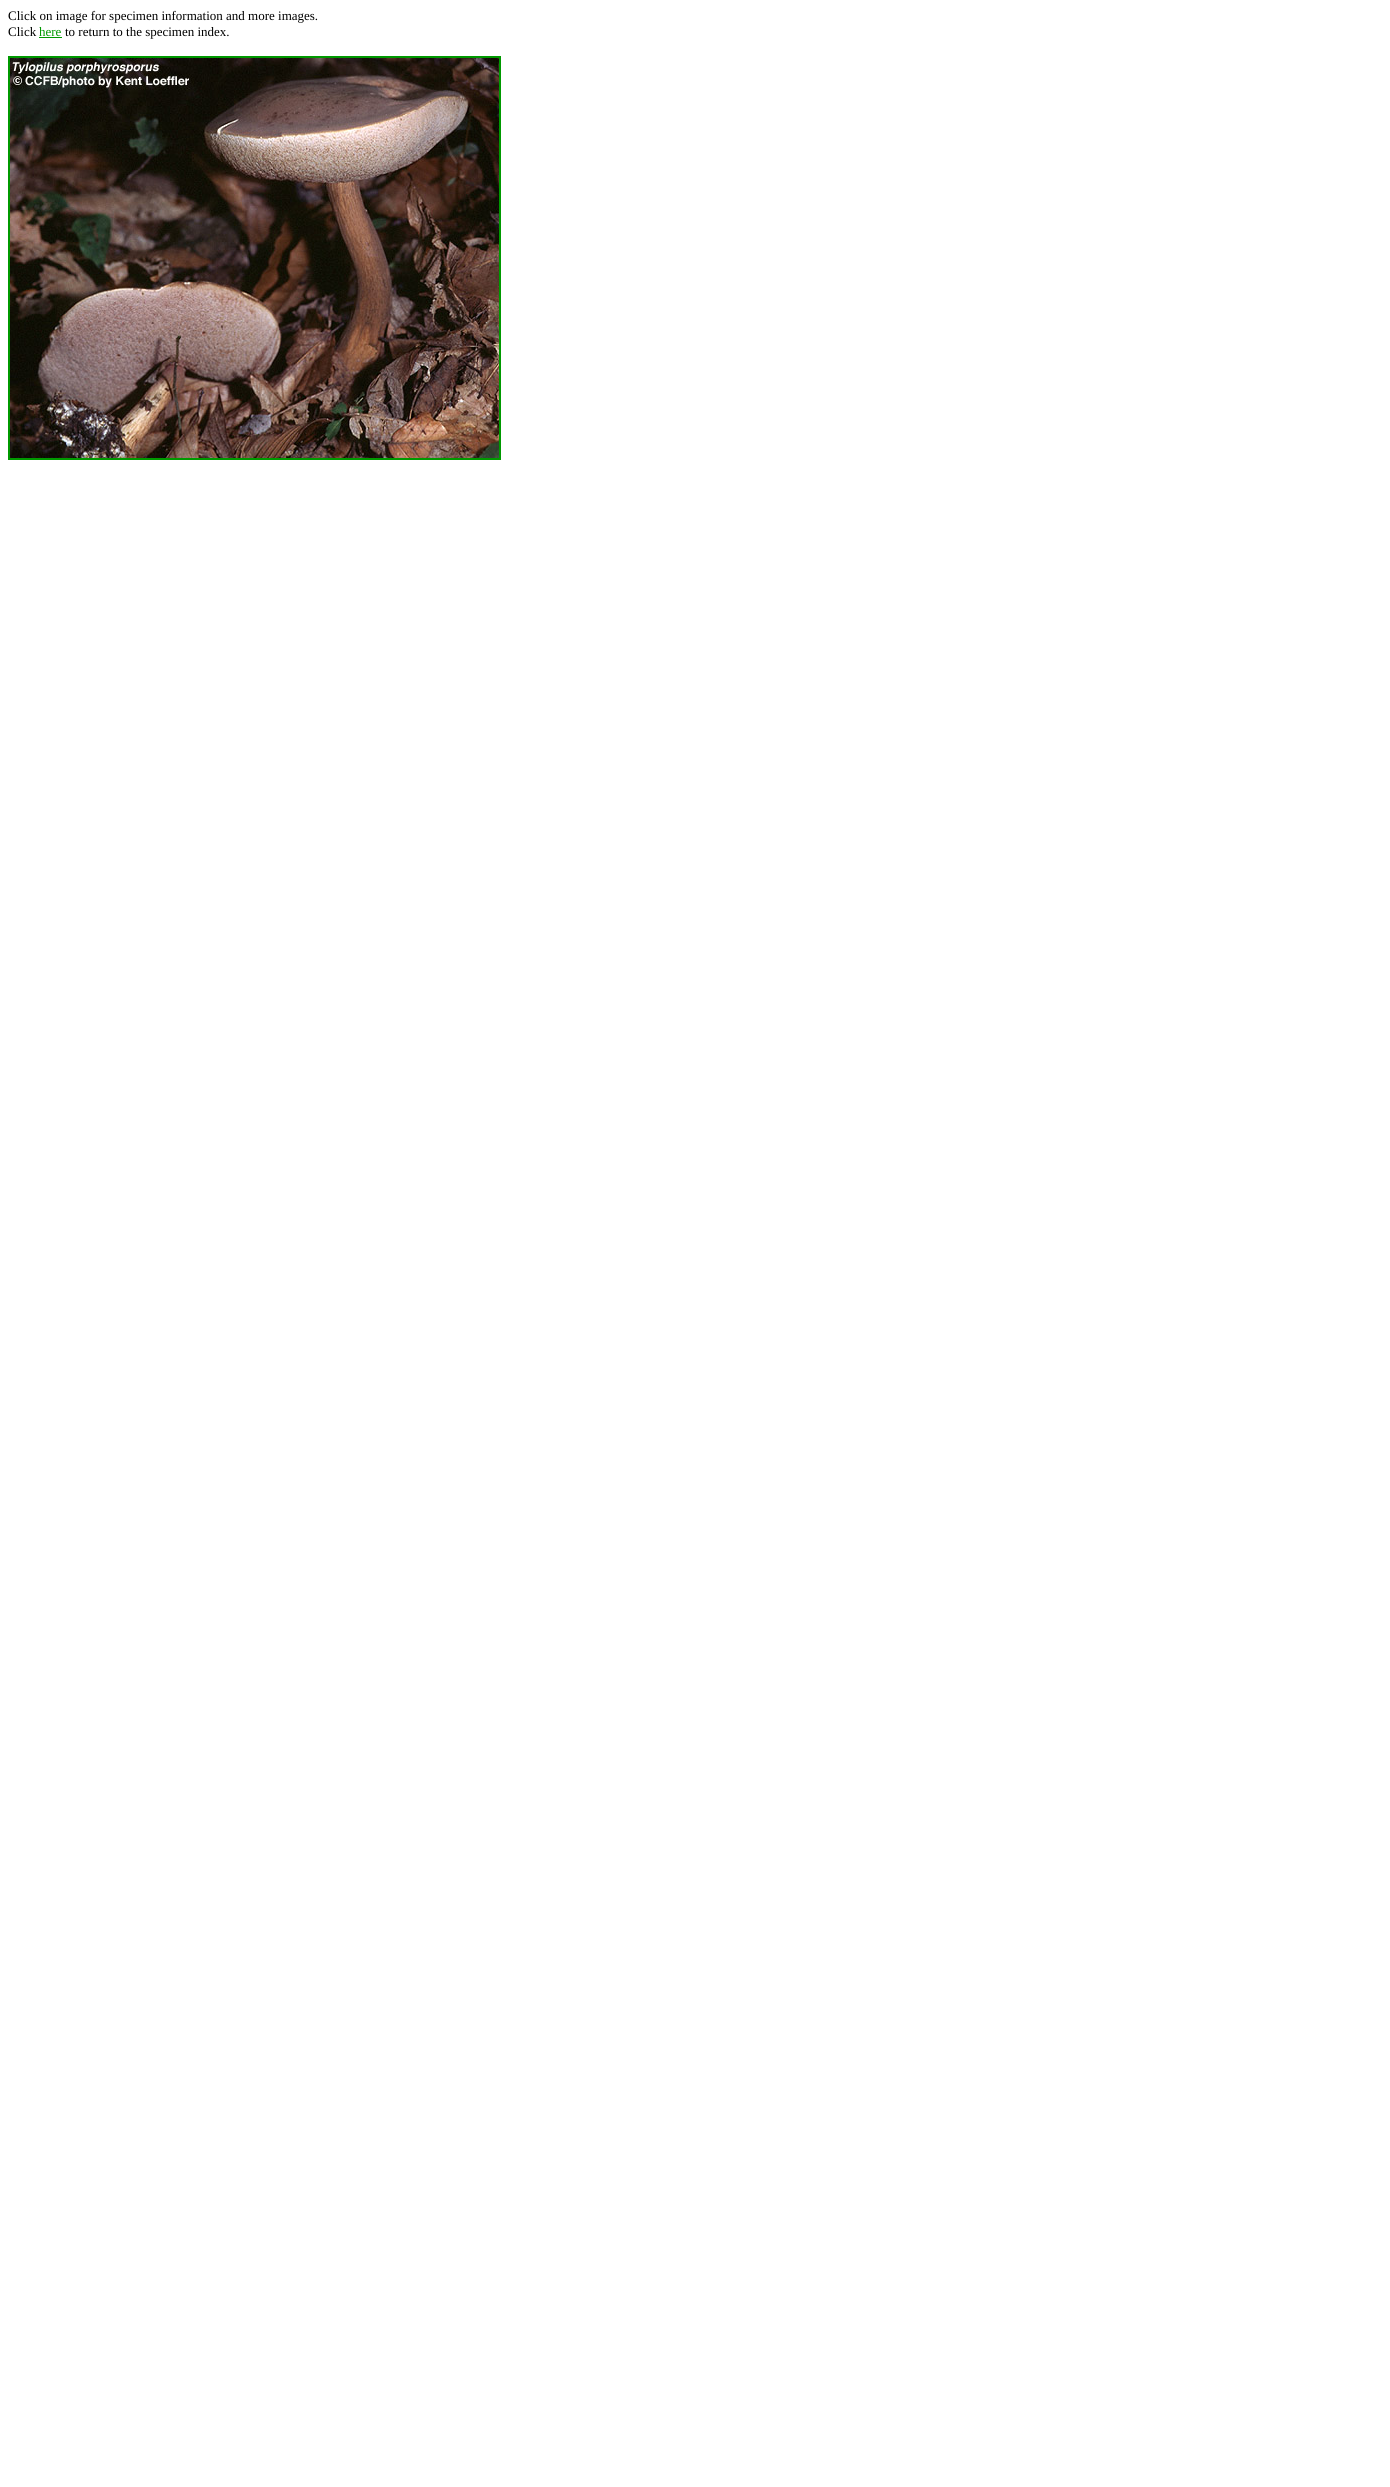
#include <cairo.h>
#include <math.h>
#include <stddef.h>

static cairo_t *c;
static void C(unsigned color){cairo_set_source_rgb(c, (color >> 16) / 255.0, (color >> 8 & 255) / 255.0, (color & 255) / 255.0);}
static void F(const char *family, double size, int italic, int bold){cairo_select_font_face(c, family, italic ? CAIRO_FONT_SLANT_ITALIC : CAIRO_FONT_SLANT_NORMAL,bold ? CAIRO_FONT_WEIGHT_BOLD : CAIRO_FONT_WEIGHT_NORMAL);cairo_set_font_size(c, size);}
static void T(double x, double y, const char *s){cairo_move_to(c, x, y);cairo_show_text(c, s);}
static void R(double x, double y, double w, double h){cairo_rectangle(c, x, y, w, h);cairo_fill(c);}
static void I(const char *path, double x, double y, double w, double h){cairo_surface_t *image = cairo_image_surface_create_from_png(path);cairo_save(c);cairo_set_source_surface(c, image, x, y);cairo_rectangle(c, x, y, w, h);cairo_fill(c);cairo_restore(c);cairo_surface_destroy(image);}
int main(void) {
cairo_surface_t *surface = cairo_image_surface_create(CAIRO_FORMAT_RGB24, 1390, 2487);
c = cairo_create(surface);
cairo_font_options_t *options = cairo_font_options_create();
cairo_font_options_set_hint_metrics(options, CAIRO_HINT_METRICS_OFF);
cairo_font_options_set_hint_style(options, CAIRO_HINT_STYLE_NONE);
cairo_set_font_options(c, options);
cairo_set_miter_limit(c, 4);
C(0xffffff);
cairo_paint(c);
F("Liberation Serif",13,0,0);
C(0x000000);
T(8,20,"Click on image for specimen information and more images.");
T(8,36,"Click");
C(0x009900);
T(39,36,"here");
R(39,37,23,1);
C(0x000000);
T(65,36,"to return to the specimen index.");
cairo_rectangle(c,9,57,491,402);
C(0x009900);
cairo_stroke(c);
I("1.png",10,58,489,400);
cairo_surface_write_to_png(surface, "o.png");
cairo_font_options_destroy(options);
cairo_destroy(c);
cairo_surface_destroy(surface);
return 0;
}
